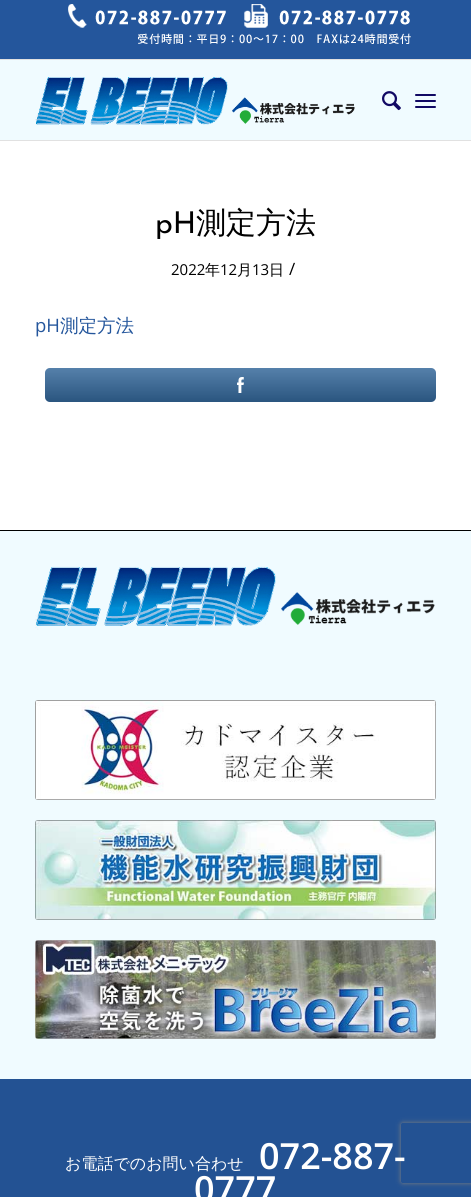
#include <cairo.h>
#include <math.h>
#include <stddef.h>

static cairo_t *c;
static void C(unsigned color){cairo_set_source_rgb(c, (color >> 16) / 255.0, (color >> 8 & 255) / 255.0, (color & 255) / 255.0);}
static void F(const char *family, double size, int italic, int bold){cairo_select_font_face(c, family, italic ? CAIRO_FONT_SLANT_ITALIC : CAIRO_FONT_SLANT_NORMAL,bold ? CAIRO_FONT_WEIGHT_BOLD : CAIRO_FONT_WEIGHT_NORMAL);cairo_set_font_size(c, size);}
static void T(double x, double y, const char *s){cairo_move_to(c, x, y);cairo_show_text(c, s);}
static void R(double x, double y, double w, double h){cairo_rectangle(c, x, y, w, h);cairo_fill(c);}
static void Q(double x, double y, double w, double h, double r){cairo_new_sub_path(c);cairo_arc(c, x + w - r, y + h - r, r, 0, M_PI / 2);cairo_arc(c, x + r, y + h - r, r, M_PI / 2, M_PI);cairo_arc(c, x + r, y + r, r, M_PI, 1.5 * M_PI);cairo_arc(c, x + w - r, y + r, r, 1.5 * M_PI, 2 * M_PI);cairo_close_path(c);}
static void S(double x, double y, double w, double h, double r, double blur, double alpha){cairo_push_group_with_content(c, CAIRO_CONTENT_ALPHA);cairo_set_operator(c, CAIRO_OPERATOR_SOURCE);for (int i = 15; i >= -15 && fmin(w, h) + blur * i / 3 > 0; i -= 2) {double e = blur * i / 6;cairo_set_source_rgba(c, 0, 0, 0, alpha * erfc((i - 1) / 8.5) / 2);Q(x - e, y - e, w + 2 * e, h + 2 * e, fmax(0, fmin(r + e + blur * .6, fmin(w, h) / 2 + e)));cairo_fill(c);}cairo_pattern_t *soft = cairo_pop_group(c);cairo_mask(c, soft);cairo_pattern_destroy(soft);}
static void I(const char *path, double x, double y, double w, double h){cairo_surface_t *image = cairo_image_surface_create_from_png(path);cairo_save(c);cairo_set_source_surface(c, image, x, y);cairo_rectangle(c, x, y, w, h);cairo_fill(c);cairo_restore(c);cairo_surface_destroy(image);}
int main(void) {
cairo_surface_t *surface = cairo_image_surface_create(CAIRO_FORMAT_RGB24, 471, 1197);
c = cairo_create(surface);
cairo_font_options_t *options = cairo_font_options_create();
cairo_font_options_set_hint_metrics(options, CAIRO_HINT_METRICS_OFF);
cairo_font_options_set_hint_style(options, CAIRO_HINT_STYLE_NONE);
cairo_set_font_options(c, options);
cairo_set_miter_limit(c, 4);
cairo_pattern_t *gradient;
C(0xffffff);
cairo_paint(c);
C(0x24569c);
R(0,0,471,59);
C(0xe1e1e1);
R(0,59,471,1);
I("1.png",68,4,343,40);
C(0xf0fbff);
R(0,60,471,80);
C(0xe1e1e1);
R(0,140,471,1);
I("2.png",35,77,320,48);
I("3.png",382,91,19,20);
C(0x110964);
Q(415,100,21,2,1);
cairo_fill(c);
Q(415,94,21,2,1);
cairo_fill(c);
Q(415,106,21,2,1);
cairo_fill(c);
F("Josefin Sans Thin",30,0,0);
C(0x000000);
T(155,233,"pH");
F("WenQuanYi Zen Hei Medium",30,0,0);
T(196,233,"測定方法");
F("Open Sans",15,0,0);
T(171,275,"2022");
F("WenQuanYi Zen Hei Medium",15,0,0);
T(205,275,"年");
F("Open Sans",15,0,0);
T(220,275,"12");
F("WenQuanYi Zen Hei Medium",15,0,0);
T(237,275,"月");
F("Open Sans",15,0,0);
T(252,275,"13");
F("WenQuanYi Zen Hei Medium",15,0,0);
T(269,275,"日");
F("Open Sans",17,0,0);
T(289,275,"/");
F("Open Sans",18.5,0,0);
C(0x24569c);
T(35,332,"pH");
F("WenQuanYi Zen Hei Medium",18.5,0,0);
T(60,332,"測定方法");
C(0x336699);
Q(45,368,391,34,5);
cairo_fill(c);
gradient = cairo_pattern_create_linear(241,402,241,368);
cairo_pattern_add_color_stop_rgba(gradient,0,0,0,0,.17);
cairo_pattern_add_color_stop_rgba(gradient,1,1,1,1,.17);
cairo_set_source(c,gradient);
cairo_pattern_destroy(gradient);
Q(45,368,391,34,5);
cairo_fill(c);
I("4.png",237,377,7,16);
C(0x000000);
R(0,530,471,1);
C(0xf0fbff);
R(0,531,471,548);
I("5.png",35,566,400,64);
I("6.png",35,700,401,100);
I("7.png",35,820,401,100);
I("8.png",35,940,401,99);
C(0x235293);
R(0,1079,471,118);
F("WenQuanYi Zen Hei Medium",16,0,0);
C(0xffffff);
T(65,1169,"お電話でのお問い合わせ");
cairo_save(c);
cairo_set_fill_rule(c,CAIRO_FILL_RULE_EVEN_ODD);
cairo_new_path(c);
cairo_move_to(c,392,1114);
cairo_line_to(c,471,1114);
cairo_line_to(c,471,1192);
cairo_line_to(c,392,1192);
cairo_close_path(c);
cairo_move_to(c,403,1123);
cairo_line_to(c,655,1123);
cairo_curve_to(c,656,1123,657,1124,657,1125);
cairo_line_to(c,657,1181);
cairo_curve_to(c,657,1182,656,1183,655,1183);
cairo_line_to(c,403,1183);
cairo_curve_to(c,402,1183,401,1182,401,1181);
cairo_line_to(c,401,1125);
cairo_curve_to(c,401,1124,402,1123,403,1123);
cairo_close_path(c);
cairo_clip(c);
C(0x808080);
S(401,1123,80,60,2,2.5,1);
cairo_restore(c);
F("Open Sans SemiBold",36,0,0);
T(259,1169,"072-887-");
T(194,1202,"0777");
cairo_surface_write_to_png(surface, "o.png");
cairo_font_options_destroy(options);
cairo_destroy(c);
cairo_surface_destroy(surface);
return 0;
}
